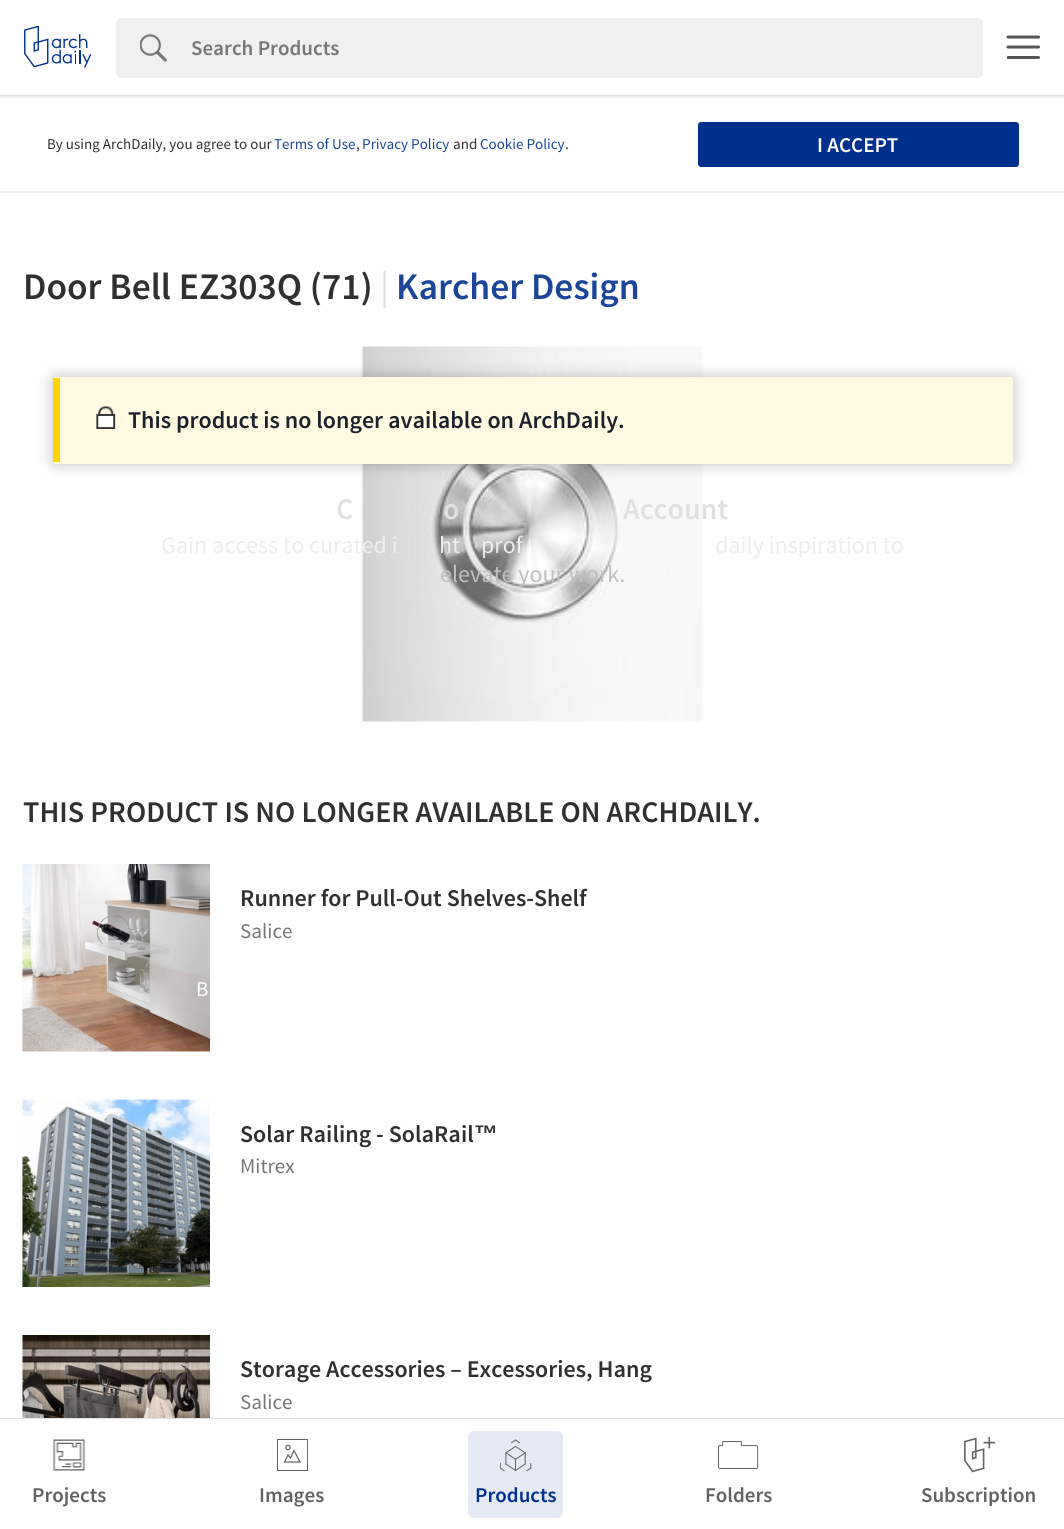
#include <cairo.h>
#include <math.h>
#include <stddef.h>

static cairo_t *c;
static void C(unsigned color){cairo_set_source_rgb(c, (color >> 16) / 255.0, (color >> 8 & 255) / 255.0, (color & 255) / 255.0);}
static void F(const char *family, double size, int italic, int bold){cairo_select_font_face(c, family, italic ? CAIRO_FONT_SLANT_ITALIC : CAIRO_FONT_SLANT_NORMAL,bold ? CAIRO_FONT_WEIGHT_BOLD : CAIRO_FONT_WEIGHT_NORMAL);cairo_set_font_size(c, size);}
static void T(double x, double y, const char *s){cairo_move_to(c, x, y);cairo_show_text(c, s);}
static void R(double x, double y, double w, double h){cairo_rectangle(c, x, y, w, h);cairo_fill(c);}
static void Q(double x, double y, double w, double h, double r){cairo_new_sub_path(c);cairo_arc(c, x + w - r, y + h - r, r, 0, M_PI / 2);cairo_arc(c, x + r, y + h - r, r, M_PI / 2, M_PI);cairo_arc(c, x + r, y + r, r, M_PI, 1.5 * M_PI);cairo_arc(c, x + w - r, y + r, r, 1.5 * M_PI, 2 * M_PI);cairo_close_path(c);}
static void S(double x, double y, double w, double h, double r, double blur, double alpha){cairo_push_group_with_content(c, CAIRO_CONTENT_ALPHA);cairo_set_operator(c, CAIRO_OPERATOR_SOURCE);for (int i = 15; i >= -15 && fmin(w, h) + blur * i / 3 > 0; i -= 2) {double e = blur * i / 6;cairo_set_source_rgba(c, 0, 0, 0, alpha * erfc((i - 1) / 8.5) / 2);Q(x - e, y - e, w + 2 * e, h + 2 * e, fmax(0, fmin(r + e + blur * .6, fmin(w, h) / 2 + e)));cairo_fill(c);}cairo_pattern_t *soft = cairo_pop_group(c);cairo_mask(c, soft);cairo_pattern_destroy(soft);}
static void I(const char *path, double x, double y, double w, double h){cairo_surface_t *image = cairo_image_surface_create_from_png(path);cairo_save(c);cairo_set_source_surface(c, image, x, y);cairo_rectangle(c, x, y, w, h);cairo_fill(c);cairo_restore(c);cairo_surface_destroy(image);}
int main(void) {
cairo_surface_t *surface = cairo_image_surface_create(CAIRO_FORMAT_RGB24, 1064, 1529);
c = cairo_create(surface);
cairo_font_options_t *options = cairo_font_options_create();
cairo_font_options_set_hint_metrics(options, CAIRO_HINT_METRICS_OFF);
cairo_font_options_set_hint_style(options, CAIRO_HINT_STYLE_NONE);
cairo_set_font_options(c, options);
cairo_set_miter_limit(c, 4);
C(0xffffff);
cairo_paint(c);
C(0xe1e1e1);
R(0,95,1064,1);
I("1.png",24,26,68,42);
C(0xf0f0f0);
Q(116,18,867,60,6);
cairo_fill(c);
I("2.png",140,34,27,28);
cairo_new_path(c);
cairo_move_to(c,191,18);
cairo_line_to(c,977,18);
cairo_curve_to(c,980.5,18,983,20.5,983,24);
cairo_line_to(c,983,72);
cairo_curve_to(c,983,75.5,980.5,78,977,78);
cairo_line_to(c,191,78);
cairo_close_path(c);
cairo_fill(c);
F("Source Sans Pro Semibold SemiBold",21,0,0);
C(0x767676);
T(191,55,"Search Products");
cairo_new_path(c);
cairo_move_to(c,1008,37);
cairo_line_to(c,1038.5,37);
cairo_move_to(c,1008,47);
cairo_line_to(c,1038.5,47);
C(0x565656);
cairo_set_line_width(c,3);
cairo_set_line_cap(c,CAIRO_LINE_CAP_ROUND);
cairo_stroke(c);
cairo_save(c);
cairo_rectangle(c,1007,35,34,25);
cairo_clip(c);
cairo_new_path(c);
cairo_move_to(c,1008,57.5);
cairo_line_to(c,1038.5,57.5);
cairo_stroke(c);
cairo_restore(c);
C(0xf1f1f1);
R(0,96,1064,2);
R(0,191,1064,2);
F("Source Sans Pro",15,0,0);
C(0x303030);
T(47,149,"By using ArchDaily, you agree to our");
C(0x1a4599);
T(274,149,"Terms of Use");
C(0x303030);
T(356,149,",");
C(0x1a4599);
T(362,149,"Privacy Policy");
C(0x303030);
T(453,149,"and");
C(0x1a4599);
T(480,149,"Cookie Policy");
C(0x303030);
T(565,149,".");
C(0x00308e);
Q(698,122,321,45,3);
cairo_fill(c);
F("Source Sans Pro Semibold SemiBold",21,0,0);
C(0xffffff);
T(817,152,"I ACCEPT");
F("Source Sans Pro Semibold SemiBold",37.5,0,0);
C(0x303030);
T(23,299,"Door Bell EZ303Q (71)");
F("Source Sans Pro",37.5,0,0);
C(0xe1e1e1);
T(380,299,"|");
F("Source Sans Pro Semibold SemiBold",37.5,0,0);
C(0x1a4599);
T(396,299,"Karcher Design");
I("3.png",361,346,342,376);
C(0x000000);
S(53,377,960,87,3,7.5,.25);
C(0xfffae1);
Q(53,377,960,87,3);
cairo_fill(c);
C(0xffd400);
R(53,378,7,84);
I("4.png",96,406,20,23);
F("Source Sans Pro Semibold SemiBold",24,0,0);
C(0x1c222c);
T(128,428,"This product is no longer available on ArchDaily.");
F("Source Sans Pro Semibold SemiBold",30,0,0);
C(0x303030);
T(23,822,"THIS PRODUCT IS NO LONGER AVAILABLE ON ARCHDAILY.");
I("5.png",22,864,188,188);
F("Source Sans Pro Semibold SemiBold",24,0,0);
T(240,906,"Runner for Pull-Out Shelves-Shelf");
F("Source Sans Pro",21,0,0);
C(0x767676);
T(240,938,"Salice");
I("6.png",22,1099,188,188);
F("Source Sans Pro Semibold SemiBold",24,0,0);
C(0x303030);
T(240,1142,"Solar Railing - SolaRail");
F("Liberation Sans",24,0,1);
T(474,1142,"™");
F("Source Sans Pro",21,0,0);
C(0x767676);
T(240,1173,"Mitrex");
I("7.png",22,1335,188,83);
F("Source Sans Pro Semibold SemiBold",24,0,0);
C(0x303030);
T(240,1377,"Storage Accessories – Excessories, Hang");
F("Source Sans Pro",21,0,0);
C(0x767676);
T(240,1409,"Salice");
F("Source Sans Pro Semibold SemiBold",30,0,0);
C(0xe1e1e1);
T(336,519,"C");
T(443,519,"o");
T(623,519,"Account");
F("Source Sans Pro",24,0,0);
C(0xeeeeee);
T(161,553,"Gain access to curated i");
T(439,553,"ht");
T(481,553,"prof");
T(715,553,"daily inspiration to");
C(0xbfbfbf);
T(440,582,"elevate your work.");
F("Source Sans Pro",21,0,0);
C(0xffffff);
T(196,996,"B");
C(0xe1e1e1);
R(0,1418,1064,1);
I("8.png",53,1439,32,32);
F("Source Sans Pro Semibold SemiBold",21,0,0);
C(0x626262);
T(32,1502,"Projects");
cairo_rectangle(c,277.5,1439.5,30,31);
cairo_set_line_width(c,1);
cairo_set_line_cap(c,CAIRO_LINE_CAP_BUTT);
cairo_stroke(c);
cairo_new_path(c);
cairo_move_to(c,294,1450.5);
cairo_line_to(c,300,1462);
cairo_line_to(c,284.5,1462);
cairo_line_to(c,288,1455);
cairo_line_to(c,290.5,1458);
cairo_close_path(c);
cairo_set_line_width(c,1.2);
cairo_set_line_cap(c,CAIRO_LINE_CAP_ROUND);
cairo_stroke(c);
cairo_arc(c,288,1447.5,2.2,0,2 * M_PI);
cairo_set_line_cap(c,CAIRO_LINE_CAP_BUTT);
cairo_stroke(c);
T(259,1502,"Images");
C(0xe5eaf4);
Q(468,1431,95,87,6);
cairo_fill(c);
I("9.png",500,1439,32,33);
C(0x00308e);
T(475,1502,"Products");
I("10.png",718,1441,41,28);
C(0x626262);
T(705,1502,"Folders");
I("11.png",964,1437,31,36);
T(921,1502,"Subscription");
cairo_surface_write_to_png(surface, "o.png");
cairo_font_options_destroy(options);
cairo_destroy(c);
cairo_surface_destroy(surface);
return 0;
}
